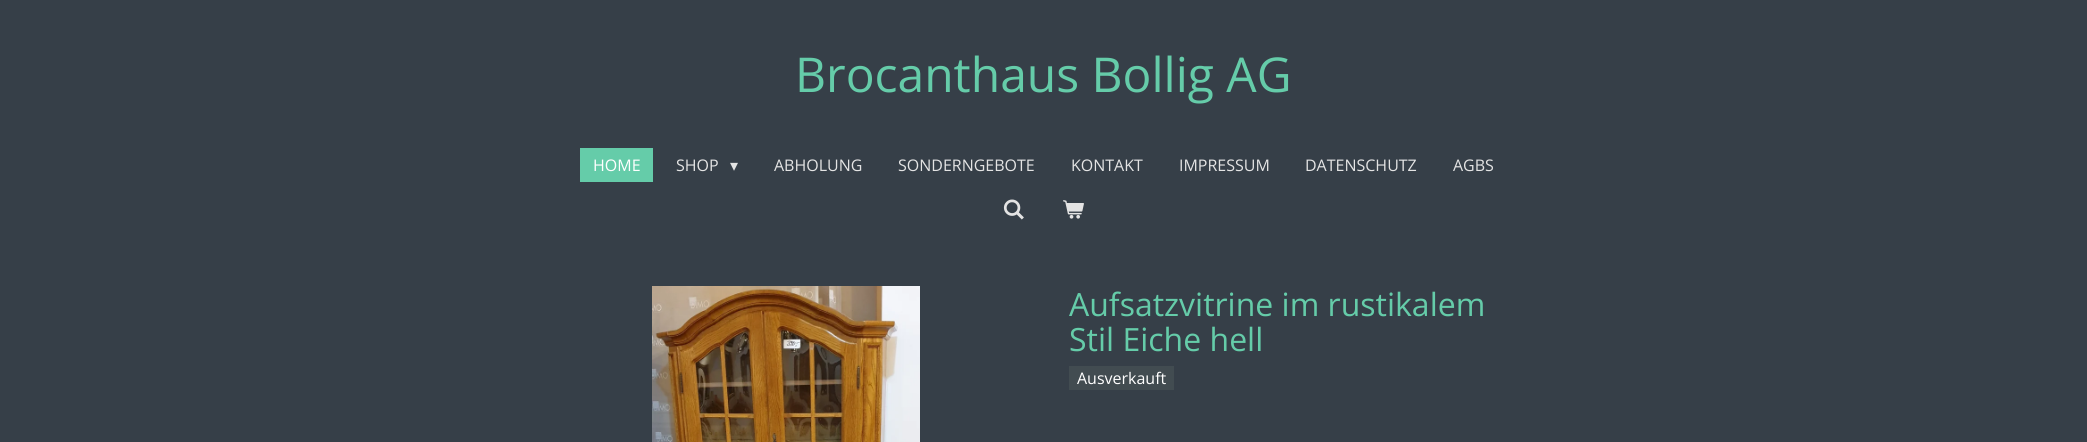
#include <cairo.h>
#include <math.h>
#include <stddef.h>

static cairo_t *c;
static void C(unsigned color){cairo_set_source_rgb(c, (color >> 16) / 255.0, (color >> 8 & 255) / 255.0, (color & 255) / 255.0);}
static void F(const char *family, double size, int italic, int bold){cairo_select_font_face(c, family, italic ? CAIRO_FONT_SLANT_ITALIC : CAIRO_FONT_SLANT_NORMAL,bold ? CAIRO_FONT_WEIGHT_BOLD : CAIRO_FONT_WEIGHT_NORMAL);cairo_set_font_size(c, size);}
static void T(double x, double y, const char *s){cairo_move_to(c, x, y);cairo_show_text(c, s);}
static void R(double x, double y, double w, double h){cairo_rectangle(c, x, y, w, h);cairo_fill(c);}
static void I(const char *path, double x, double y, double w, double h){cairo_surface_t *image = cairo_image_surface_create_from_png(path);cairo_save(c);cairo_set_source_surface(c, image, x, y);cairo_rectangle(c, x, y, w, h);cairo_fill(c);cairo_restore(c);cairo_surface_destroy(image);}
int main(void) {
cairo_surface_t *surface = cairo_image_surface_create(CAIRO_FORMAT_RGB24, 2087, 442);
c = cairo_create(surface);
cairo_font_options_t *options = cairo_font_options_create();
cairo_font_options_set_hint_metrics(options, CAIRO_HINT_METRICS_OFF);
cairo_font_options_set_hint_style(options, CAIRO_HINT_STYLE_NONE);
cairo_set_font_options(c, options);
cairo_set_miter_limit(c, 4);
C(0x363f48);
cairo_paint(c);
F("Open Sans",48,0,0);
C(0x65cca9);
T(795,92,"Brocanthaus Bollig AG");
R(580,148,73,34);
F("Open Sans",16,0,0);
C(0xffffff);
T(593,171,"HOME");
C(0xe4e4e4);
T(676,171,"SHOP");
F("DejaVu Sans",16,0,0);
T(730,171,"▾");
F("Open Sans",16,0,0);
T(774,171,"ABHOLUNG");
T(898,171,"SONDERNGEBOTE");
T(1071,171,"KONTAKT");
T(1179,171,"IMPRESSUM");
T(1305,171,"DATENSCHUTZ");
T(1453,171,"AGBS");
I("1.png",1003,199,21,21);
I("2.png",1063,200,21,19);
I("3.png",652,286,268,156);
F("Open Sans",32,0,0);
C(0x65cca9);
T(1069,316,"Aufsatzvitrine im rustikalem");
T(1069,351,"Stil Eiche hell");
C(0x424c51);
R(1069,366,105,24);
F("Open Sans",16,0,0);
C(0xffffff);
T(1077,384,"Ausverkauft");
cairo_surface_write_to_png(surface, "o.png");
cairo_font_options_destroy(options);
cairo_destroy(c);
cairo_surface_destroy(surface);
return 0;
}
